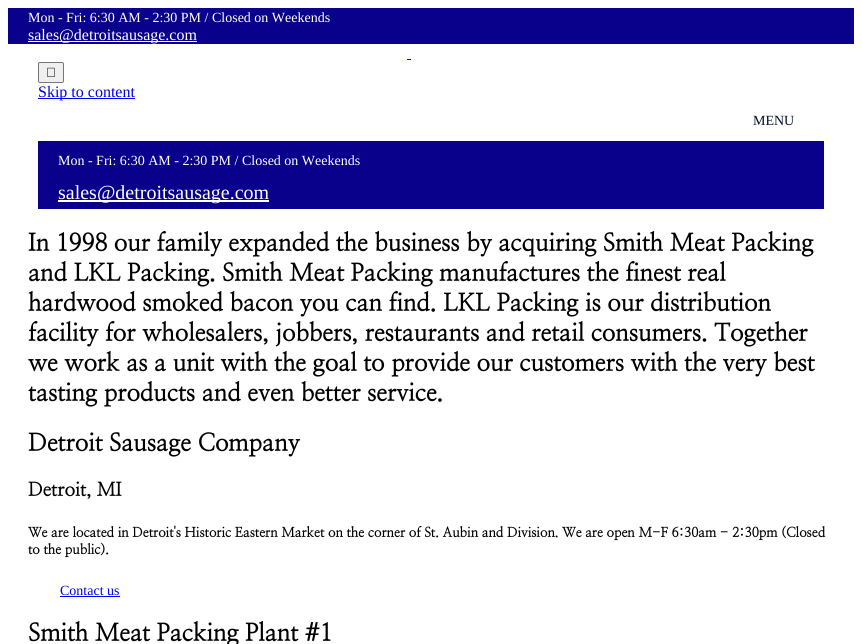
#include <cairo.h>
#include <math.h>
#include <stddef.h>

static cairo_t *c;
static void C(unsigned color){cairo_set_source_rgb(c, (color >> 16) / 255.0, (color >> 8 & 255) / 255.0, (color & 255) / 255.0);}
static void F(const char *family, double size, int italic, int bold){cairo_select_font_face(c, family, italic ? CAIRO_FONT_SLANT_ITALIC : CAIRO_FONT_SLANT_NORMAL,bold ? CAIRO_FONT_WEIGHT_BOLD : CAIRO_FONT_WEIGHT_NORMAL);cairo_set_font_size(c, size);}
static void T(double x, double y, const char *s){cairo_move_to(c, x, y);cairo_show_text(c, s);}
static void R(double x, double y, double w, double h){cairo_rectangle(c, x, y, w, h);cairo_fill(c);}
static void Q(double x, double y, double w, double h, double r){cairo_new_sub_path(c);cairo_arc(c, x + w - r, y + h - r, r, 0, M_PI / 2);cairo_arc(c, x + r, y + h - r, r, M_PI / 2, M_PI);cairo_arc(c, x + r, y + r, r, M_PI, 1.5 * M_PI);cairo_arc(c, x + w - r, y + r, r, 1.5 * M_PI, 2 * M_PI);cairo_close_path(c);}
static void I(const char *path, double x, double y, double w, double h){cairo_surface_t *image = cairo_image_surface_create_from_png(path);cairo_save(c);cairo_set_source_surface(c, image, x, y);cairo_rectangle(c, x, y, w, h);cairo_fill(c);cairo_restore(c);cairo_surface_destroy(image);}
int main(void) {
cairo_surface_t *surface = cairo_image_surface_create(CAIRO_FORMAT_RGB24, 862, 644);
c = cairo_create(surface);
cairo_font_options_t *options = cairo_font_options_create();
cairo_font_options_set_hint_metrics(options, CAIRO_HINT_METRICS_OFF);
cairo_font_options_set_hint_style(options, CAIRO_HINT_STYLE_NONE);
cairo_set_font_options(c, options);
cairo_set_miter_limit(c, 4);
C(0xffffff);
cairo_paint(c);
C(0x09008b);
R(8,8,846,36);
F("Liberation Serif",14,0,0);
C(0xffffff);
T(28,22,"Mon - Fri: 6:30 AM - 2:30 PM / Closed on Weekends");
R(28,41,169,1);
F("Liberation Serif",16,0,0);
T(28,40,"sales@detroitsausage.com");
C(0x0000ee);
R(407,59,4,1);
C(0xefefef);
Q(38.5,62.5,25,20,1.5);
cairo_fill_preserve(c);
C(0x767676);
cairo_set_line_width(c,1);
cairo_stroke(c);
I("1.png",47,67,8,10);
C(0x0000ee);
R(38,98,97,1);
T(38,97,"Skip to content");
F("Liberation Serif",14,0,0);
C(0x020d26);
T(753,125,"MENU");
C(0x09008b);
R(38,141,786,68);
C(0xffffff);
T(58,165,"Mon - Fri: 6:30 AM - 2:30 PM / Closed on Weekends");
R(58,200,211,2);
F("Liberation Serif",20,0,0);
T(58,199,"sales@detroitsausage.com");
F("NanumMyeongjo",24,0,1);
C(0x000000);
T(28,251,"In 1998 our family expanded the business by acquiring Smith Meat Packing");
T(28,281,"and LKL Packing. Smith Meat Packing manufactures the finest real");
T(28,311,"hardwood smoked bacon you can find. LKL Packing is our distribution");
T(28,341,"facility for wholesalers, jobbers, restaurants and retail consumers. Together");
T(28,371,"we work as a unit with the goal to provide our customers with the very best");
T(28,401,"tasting products and even better service.");
T(28,451,"Detroit Sausage Company");
F("NanumMyeongjo",18.75,0,1);
T(28,496,"Detroit, MI");
F("NanumMyeongjo",13.28,0,1);
T(28,537,"We are located in Detroit's Historic Eastern Market on the corner of St. Aubin and Division. We are open M-F 6:30am - 2:30pm (Closed");
T(28,554,"to the public).");
F("Liberation Serif",14,0,0);
C(0x0000ee);
T(60,595,"Contact us");
R(60,596,60,1);
F("NanumMyeongjo",24,0,1);
C(0x000000);
T(28,641,"Smith Meat Packing Plant #1");
cairo_surface_write_to_png(surface, "o.png");
cairo_font_options_destroy(options);
cairo_destroy(c);
cairo_surface_destroy(surface);
return 0;
}
